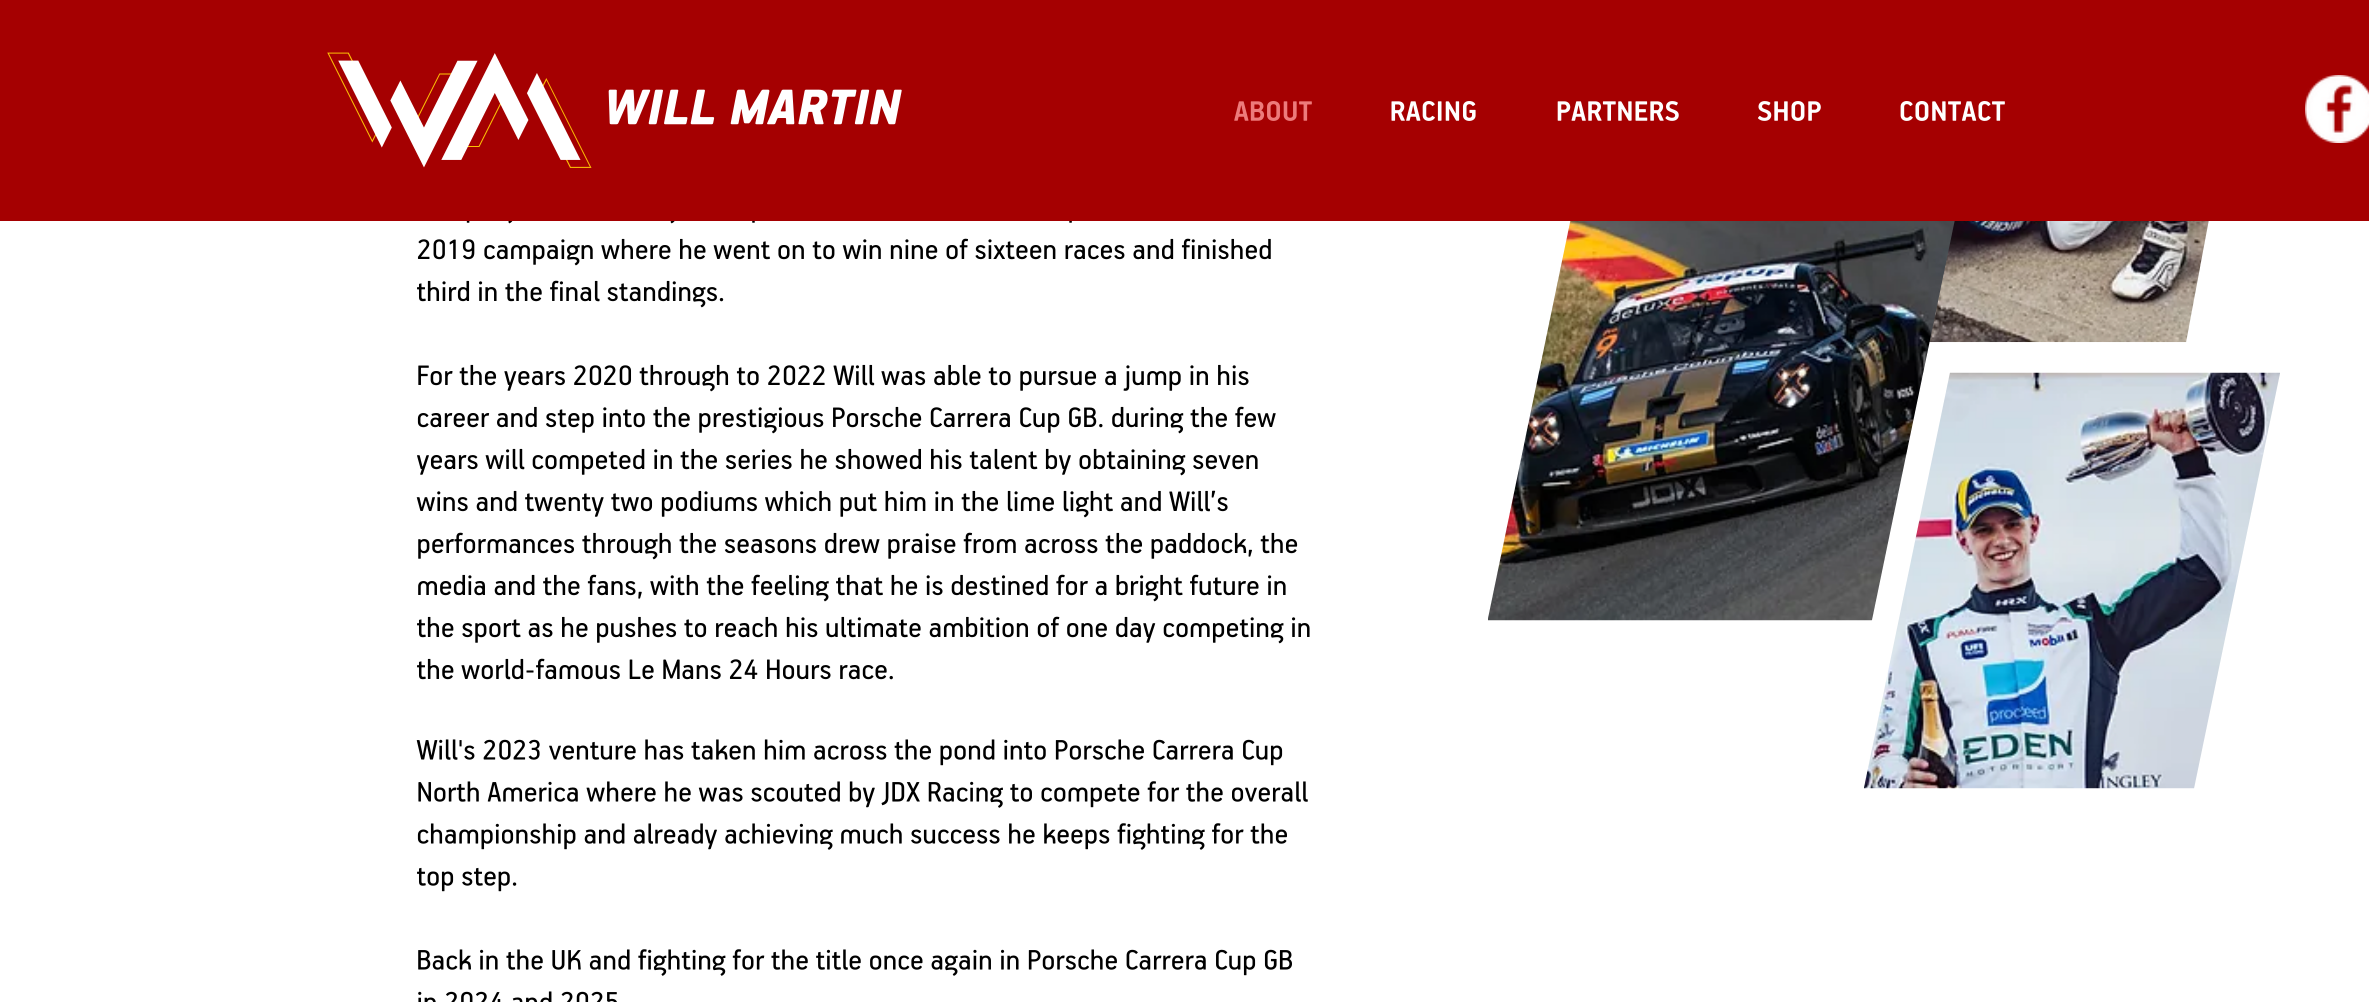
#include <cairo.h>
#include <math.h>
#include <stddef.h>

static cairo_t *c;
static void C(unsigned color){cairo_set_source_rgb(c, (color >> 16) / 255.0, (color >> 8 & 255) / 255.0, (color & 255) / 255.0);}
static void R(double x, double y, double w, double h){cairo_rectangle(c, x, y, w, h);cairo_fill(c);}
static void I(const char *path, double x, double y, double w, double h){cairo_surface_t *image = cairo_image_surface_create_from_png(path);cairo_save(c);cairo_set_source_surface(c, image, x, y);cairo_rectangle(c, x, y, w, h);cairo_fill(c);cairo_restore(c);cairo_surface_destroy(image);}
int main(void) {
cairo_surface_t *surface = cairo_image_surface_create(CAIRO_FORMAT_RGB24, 2369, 1002);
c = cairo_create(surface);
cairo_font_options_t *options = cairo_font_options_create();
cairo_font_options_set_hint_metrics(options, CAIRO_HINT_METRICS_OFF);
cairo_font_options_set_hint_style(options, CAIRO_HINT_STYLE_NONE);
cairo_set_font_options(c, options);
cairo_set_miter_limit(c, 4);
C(0xffffff);
cairo_paint(c);
C(0xa50001);
R(0,0,2369,221);
I("1.png",327,52,265,116);
I("2.png",608,89,294,36);
I("3.png",1234,101,78,20);
I("4.png",1391,101,85,20);
I("5.png",1557,101,122,20);
I("6.png",1758,101,63,20);
I("7.png",1900,101,105,20);
I("8.png",2305,75,64,68);
I("9.png",466,221,606,3);
I("10.png",417,238,854,28);
I("11.png",417,280,307,28);
I("12.png",418,364,831,28);
I("13.png",417,406,859,28);
I("14.png",417,448,841,28);
I("15.png",416,490,745,28);
I("16.png",1169,490,59,22);
I("17.png",418,532,880,28);
I("18.png",418,574,868,28);
I("19.png",417,616,893,28);
I("20.png",417,658,476,22);
I("21.png",416,739,867,27);
I("22.png",418,781,890,27);
I("23.png",417,823,870,27);
I("24.png",417,867,100,25);
I("25.png",418,949,874,27);
I("26.png",418,991,199,11);
I("28.png",1929,221,280,122);
I("27.png",1488,221,467,400);
I("29.png",1864,372,416,417);
cairo_surface_write_to_png(surface, "o.png");
cairo_font_options_destroy(options);
cairo_destroy(c);
cairo_surface_destroy(surface);
return 0;
}
